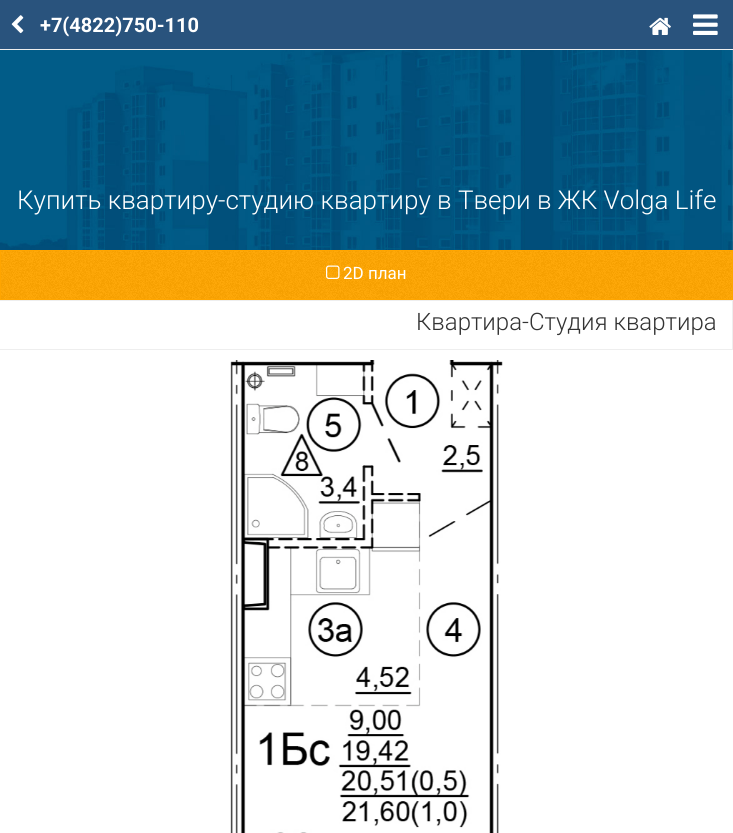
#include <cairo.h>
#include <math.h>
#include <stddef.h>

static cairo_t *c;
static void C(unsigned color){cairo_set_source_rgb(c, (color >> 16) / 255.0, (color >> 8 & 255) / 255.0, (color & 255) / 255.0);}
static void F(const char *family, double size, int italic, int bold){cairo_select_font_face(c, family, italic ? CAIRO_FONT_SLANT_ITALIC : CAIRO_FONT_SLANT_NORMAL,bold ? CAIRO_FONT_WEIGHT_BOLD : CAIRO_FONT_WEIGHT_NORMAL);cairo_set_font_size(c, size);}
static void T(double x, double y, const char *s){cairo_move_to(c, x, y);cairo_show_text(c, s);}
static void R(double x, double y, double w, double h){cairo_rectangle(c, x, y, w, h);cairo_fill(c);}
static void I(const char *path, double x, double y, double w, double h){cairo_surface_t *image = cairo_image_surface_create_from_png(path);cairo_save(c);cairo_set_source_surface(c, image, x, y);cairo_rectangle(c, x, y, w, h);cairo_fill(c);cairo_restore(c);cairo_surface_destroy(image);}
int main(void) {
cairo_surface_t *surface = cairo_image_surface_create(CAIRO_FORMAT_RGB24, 733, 833);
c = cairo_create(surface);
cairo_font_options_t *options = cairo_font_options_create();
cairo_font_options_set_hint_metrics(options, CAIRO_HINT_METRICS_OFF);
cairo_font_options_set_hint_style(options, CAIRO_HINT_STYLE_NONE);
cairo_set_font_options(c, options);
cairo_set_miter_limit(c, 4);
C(0xffffff);
cairo_paint(c);
C(0x29537d);
R(0,0,733,49);
C(0xeeeeee);
R(0,49,733,1);
I("1.png",11,15,13,19);
F("Roboto",20,0,1);
C(0xffffff);
T(40,32,"+7(4822)750-110");
I("2.png",649,17,22,18);
I("3.png",693,14,25,21);
I("4.png",0,50,733,200);
F("Roboto Light",26,0,0);
T(17,209,"Купить квартиру-студию квартиру в Твери в ЖК Volga Life");
C(0xffa500);
R(1,251,731,48);
I("5.png",1,251,731,48);
cairo_rectangle(c,.5,250.5,732,49);
cairo_set_line_width(c,1);
cairo_stroke(c);
I("6.png",326,265,14,14);
F("Roboto",17,0,0);
C(0xffffff);
T(343,279,"2D план");
C(0xeeeeee);
R(0,300,733,1);
R(732,300,1,50);
R(0,349,733,1);
F("Roboto Light",24,0,0);
C(0x333333);
T(416,330,"Квартира-Студия квартира");
I("7.png",230,360,273,473);
cairo_surface_write_to_png(surface, "o.png");
cairo_font_options_destroy(options);
cairo_destroy(c);
cairo_surface_destroy(surface);
return 0;
}
